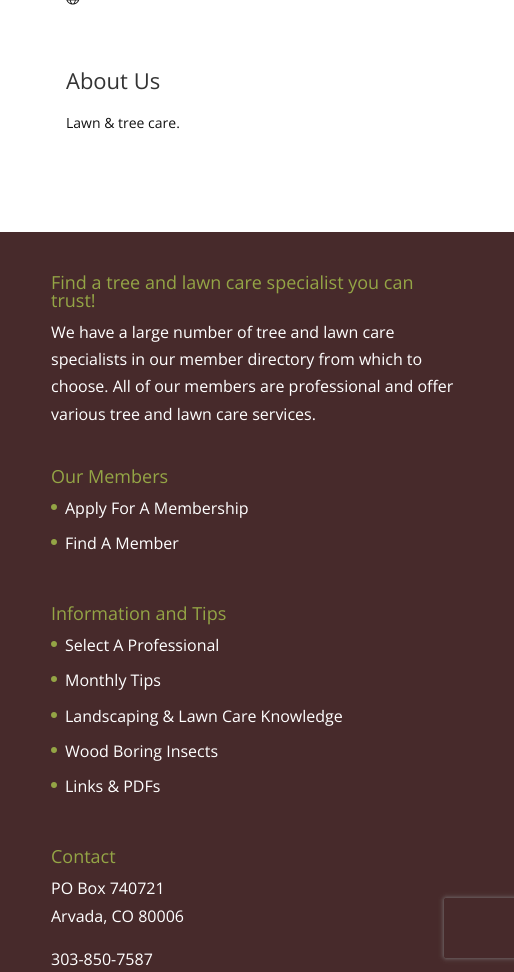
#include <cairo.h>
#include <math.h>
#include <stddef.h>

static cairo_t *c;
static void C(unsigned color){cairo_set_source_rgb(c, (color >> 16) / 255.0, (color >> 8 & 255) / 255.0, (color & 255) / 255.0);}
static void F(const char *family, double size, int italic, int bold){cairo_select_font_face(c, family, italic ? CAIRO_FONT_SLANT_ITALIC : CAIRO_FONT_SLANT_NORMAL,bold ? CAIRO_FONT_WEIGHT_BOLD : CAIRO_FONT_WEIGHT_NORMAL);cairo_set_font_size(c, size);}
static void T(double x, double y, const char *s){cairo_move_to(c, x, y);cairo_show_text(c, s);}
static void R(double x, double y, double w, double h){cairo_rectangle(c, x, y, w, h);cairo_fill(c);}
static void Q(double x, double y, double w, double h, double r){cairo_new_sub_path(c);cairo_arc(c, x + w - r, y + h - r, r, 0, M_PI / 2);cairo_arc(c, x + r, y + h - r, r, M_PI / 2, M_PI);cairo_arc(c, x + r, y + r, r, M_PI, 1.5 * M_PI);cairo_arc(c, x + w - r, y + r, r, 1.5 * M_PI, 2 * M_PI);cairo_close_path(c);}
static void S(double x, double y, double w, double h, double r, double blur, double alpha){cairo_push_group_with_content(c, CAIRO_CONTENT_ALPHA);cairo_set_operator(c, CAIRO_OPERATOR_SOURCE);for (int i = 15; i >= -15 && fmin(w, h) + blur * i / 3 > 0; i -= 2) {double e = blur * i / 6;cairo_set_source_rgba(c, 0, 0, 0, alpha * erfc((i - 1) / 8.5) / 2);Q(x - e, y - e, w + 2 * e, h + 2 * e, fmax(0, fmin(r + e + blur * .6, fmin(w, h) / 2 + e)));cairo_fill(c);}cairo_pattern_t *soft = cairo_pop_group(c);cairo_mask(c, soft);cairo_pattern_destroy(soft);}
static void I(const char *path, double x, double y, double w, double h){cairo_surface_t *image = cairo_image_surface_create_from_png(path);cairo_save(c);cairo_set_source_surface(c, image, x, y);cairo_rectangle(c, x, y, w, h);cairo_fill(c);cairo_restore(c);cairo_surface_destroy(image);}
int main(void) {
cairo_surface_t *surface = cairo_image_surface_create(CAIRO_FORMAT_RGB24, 514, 972);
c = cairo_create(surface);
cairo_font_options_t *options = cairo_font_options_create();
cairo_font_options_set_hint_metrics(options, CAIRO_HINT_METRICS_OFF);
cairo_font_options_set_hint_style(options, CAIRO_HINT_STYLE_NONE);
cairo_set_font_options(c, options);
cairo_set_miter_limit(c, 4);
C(0xffffff);
cairo_paint(c);
I("1.png",66,0,14,5);
F("Open Sans",22,0,0);
C(0x333333);
T(66,89,"About Us");
F("Open Sans",14,0,0);
C(0x111111);
T(66,128,"Lawn & tree care.");
C(0x472a2b);
R(0,232,514,740);
F("Open Sans",18,0,0);
C(0x94a545);
T(51,289,"Find a tree and lawn care specialist you can");
T(51,307,"trust!");
F("Open Sans",16,0,0);
C(0xffffff);
T(51,338,"We have a large number of tree and lawn care");
T(51,365,"specialists in our member directory from which to");
T(51,392,"choose. All of our members are professional and offer");
T(51,420,"various tree and lawn care services.");
F("Open Sans",18,0,0);
C(0x94a545);
T(51,483,"Our Members");
cairo_new_path(c);
cairo_arc(c,54,507,3,0,2 * M_PI);
cairo_fill(c);
F("Open Sans",16,0,0);
C(0xffffff);
T(65,514,"Apply For A Membership");
C(0x94a545);
cairo_new_path(c);
cairo_arc(c,54,542,3,0,2 * M_PI);
cairo_fill(c);
C(0xffffff);
T(65,549,"Find A Member");
F("Open Sans",18,0,0);
C(0x94a545);
T(51,620,"Information and Tips");
cairo_new_path(c);
cairo_arc(c,54,644,3,0,2 * M_PI);
cairo_fill(c);
F("Open Sans",16,0,0);
C(0xffffff);
T(65,651,"Select A Professional");
C(0x94a545);
cairo_new_path(c);
cairo_arc(c,54,679,3,0,2 * M_PI);
cairo_fill(c);
C(0xffffff);
T(65,686,"Monthly Tips");
C(0x94a545);
cairo_new_path(c);
cairo_arc(c,54,715,3,0,2 * M_PI);
cairo_fill(c);
C(0xffffff);
T(65,722,"Landscaping & Lawn Care Knowledge");
C(0x94a545);
cairo_new_path(c);
cairo_arc(c,54,750,3,0,2 * M_PI);
cairo_fill(c);
C(0xffffff);
T(65,757,"Wood Boring Insects");
C(0x94a545);
cairo_new_path(c);
cairo_arc(c,54,785,3,0,2 * M_PI);
cairo_fill(c);
C(0xffffff);
T(65,792,"Links & PDFs");
F("Open Sans",18,0,0);
C(0x94a545);
T(51,863,"Contact");
F("Open Sans",16,0,0);
C(0xffffff);
T(51,894,"PO Box 740721");
T(51,922,"Arvada, CO 80006");
T(51,965,"303-850-7587");
cairo_save(c);
cairo_set_fill_rule(c,CAIRO_FILL_RULE_EVEN_ODD);
cairo_new_path(c);
cairo_move_to(c,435,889);
cairo_line_to(c,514,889);
cairo_line_to(c,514,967);
cairo_line_to(c,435,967);
cairo_close_path(c);
cairo_move_to(c,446,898);
cairo_line_to(c,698,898);
cairo_curve_to(c,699,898,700,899,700,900);
cairo_line_to(c,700,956);
cairo_curve_to(c,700,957,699,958,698,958);
cairo_line_to(c,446,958);
cairo_curve_to(c,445,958,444,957,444,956);
cairo_line_to(c,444,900);
cairo_curve_to(c,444,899,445,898,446,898);
cairo_close_path(c);
cairo_clip(c);
C(0x808080);
S(444,898,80,60,2,2.5,1);
cairo_restore(c);
cairo_surface_write_to_png(surface, "o.png");
cairo_font_options_destroy(options);
cairo_destroy(c);
cairo_surface_destroy(surface);
return 0;
}
